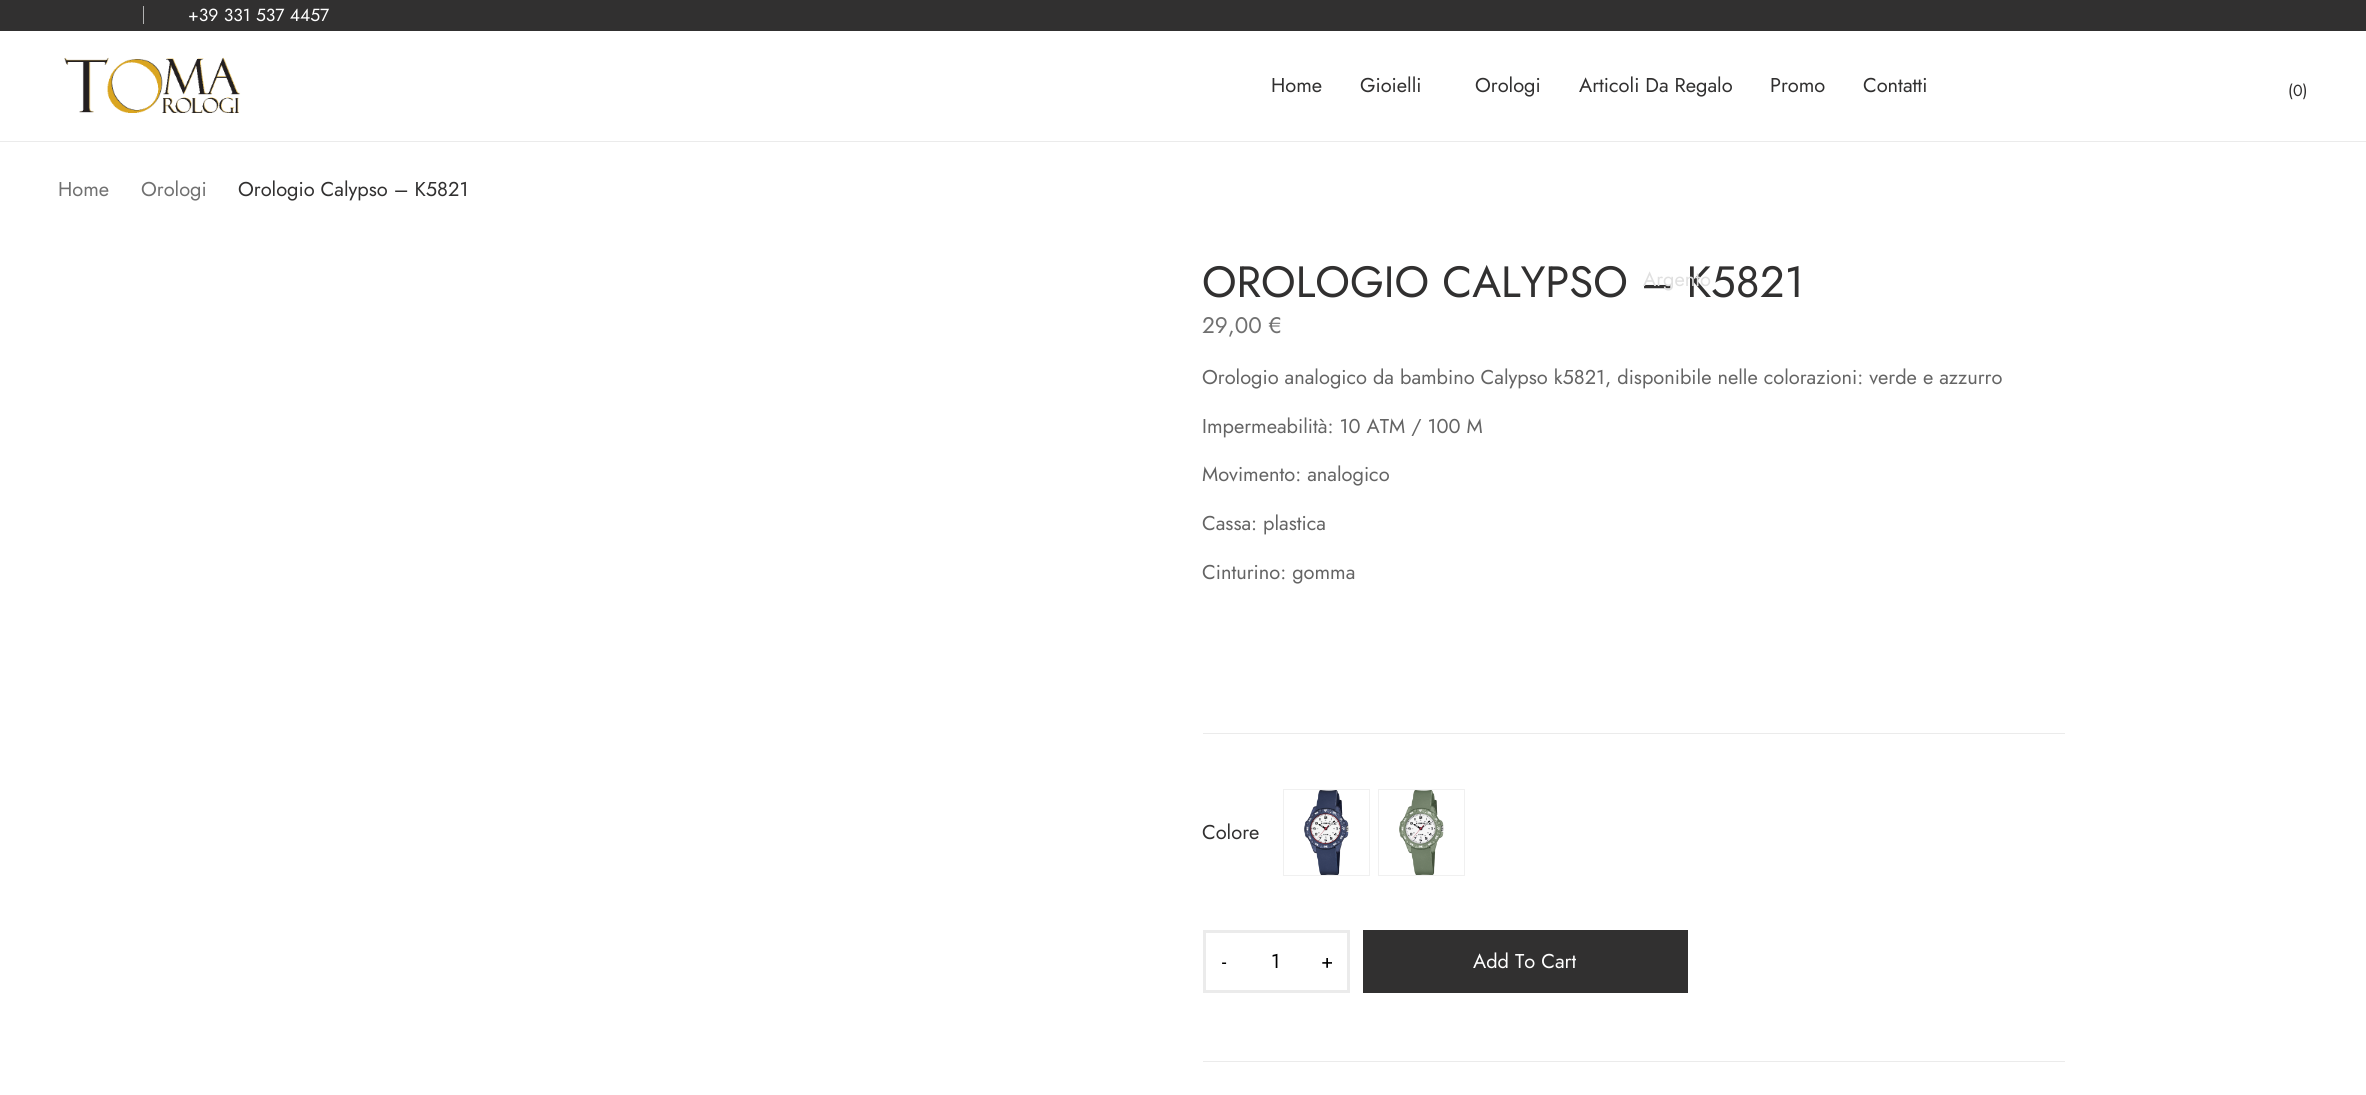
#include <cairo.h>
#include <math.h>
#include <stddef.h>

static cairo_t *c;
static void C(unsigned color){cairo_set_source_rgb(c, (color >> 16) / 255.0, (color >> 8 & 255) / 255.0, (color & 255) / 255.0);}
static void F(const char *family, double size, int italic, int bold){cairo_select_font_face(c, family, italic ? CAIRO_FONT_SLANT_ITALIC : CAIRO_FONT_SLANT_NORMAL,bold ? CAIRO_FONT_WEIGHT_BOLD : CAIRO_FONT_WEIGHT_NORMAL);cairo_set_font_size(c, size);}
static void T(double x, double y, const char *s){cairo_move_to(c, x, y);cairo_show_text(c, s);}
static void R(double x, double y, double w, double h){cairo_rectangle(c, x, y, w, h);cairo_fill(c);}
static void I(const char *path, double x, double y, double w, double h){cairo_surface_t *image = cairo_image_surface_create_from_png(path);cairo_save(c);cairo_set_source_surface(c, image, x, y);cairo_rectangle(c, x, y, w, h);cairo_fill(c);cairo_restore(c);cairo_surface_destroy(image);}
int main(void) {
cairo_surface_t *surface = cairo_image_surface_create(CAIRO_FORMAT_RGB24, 2366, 1095);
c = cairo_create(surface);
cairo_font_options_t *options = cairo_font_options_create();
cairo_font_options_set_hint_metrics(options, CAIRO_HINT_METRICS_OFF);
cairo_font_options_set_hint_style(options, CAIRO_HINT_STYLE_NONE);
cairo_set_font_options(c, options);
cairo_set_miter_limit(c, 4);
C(0xffffff);
cairo_paint(c);
C(0x313030);
R(0,0,2366,31);
C(0xb2b2b2);
R(143,6,1,18);
F("Jost",17.5,0,0);
C(0xffffff);
T(188,21,"+39 331 537 4457");
C(0xebebeb);
R(0,141,2366,1);
I("1.png",64,57,177,56);
F("Jost",20,0,0);
C(0x313030);
T(1360,92,"Gioielli");
F("Jost",43.75,0,0);
T(1202,297,"OROLOGIO CALYPSO – K5821");
F("Jost",20,0,0);
C(0xe0e0e0);
T(1643,286,"Argento");
C(0x313030);
T(1271,92,"Home");
T(1475,92,"Orologi");
T(1579,92,"Articoli Da Regalo");
T(1770,92,"Promo");
T(1863,92,"Contatti");
F("Jost",16,0,0);
T(2288,96,"(0)");
F("Jost",20,0,0);
C(0x707070);
T(58,196,"Home");
T(141,196,"Orologi");
C(0x313030);
T(238,196,"Orologio Calypso – K5821");
F("Jost",22.5,0,0);
C(0x707070);
T(1202,333,"29,00 €");
C(0xebebeb);
R(1203,733,862,1);
F("Jost",20,0,0);
C(0x646464);
T(1202,384,"Orologio analogico da bambino Calypso k5821, disponibile nelle colorazioni: verde e azzurro");
T(1202,433,"Impermeabilità: 10 ATM / 100 M");
T(1202,481,"Movimento: analogico");
T(1202,530,"Cassa: plastica");
T(1202,579,"Cinturino: gomma");
C(0x313030);
T(1202,839,"Colore");
I("2.png",1304,790,45,85);
cairo_rectangle(c,1283.5,789.5,86,86);
C(0xf0f0f0);
cairo_set_line_width(c,1);
cairo_stroke(c);
I("3.png",1399,790,45,85);
cairo_rectangle(c,1378.5,789.5,86,86);
cairo_stroke(c);
cairo_rectangle(c,1204.5,931.5,144,60);
C(0xebebeb);
cairo_set_line_width(c,3);
cairo_stroke(c);
C(0x000000);
T(1222,968,"-");
T(1271,968,"1");
T(1321,968,"+");
C(0x313030);
R(1363,930,325,63);
C(0xffffff);
T(1473,968,"Add To Cart");
C(0xebebeb);
R(1203,1061,862,1);
cairo_surface_write_to_png(surface, "o.png");
cairo_font_options_destroy(options);
cairo_destroy(c);
cairo_surface_destroy(surface);
return 0;
}
